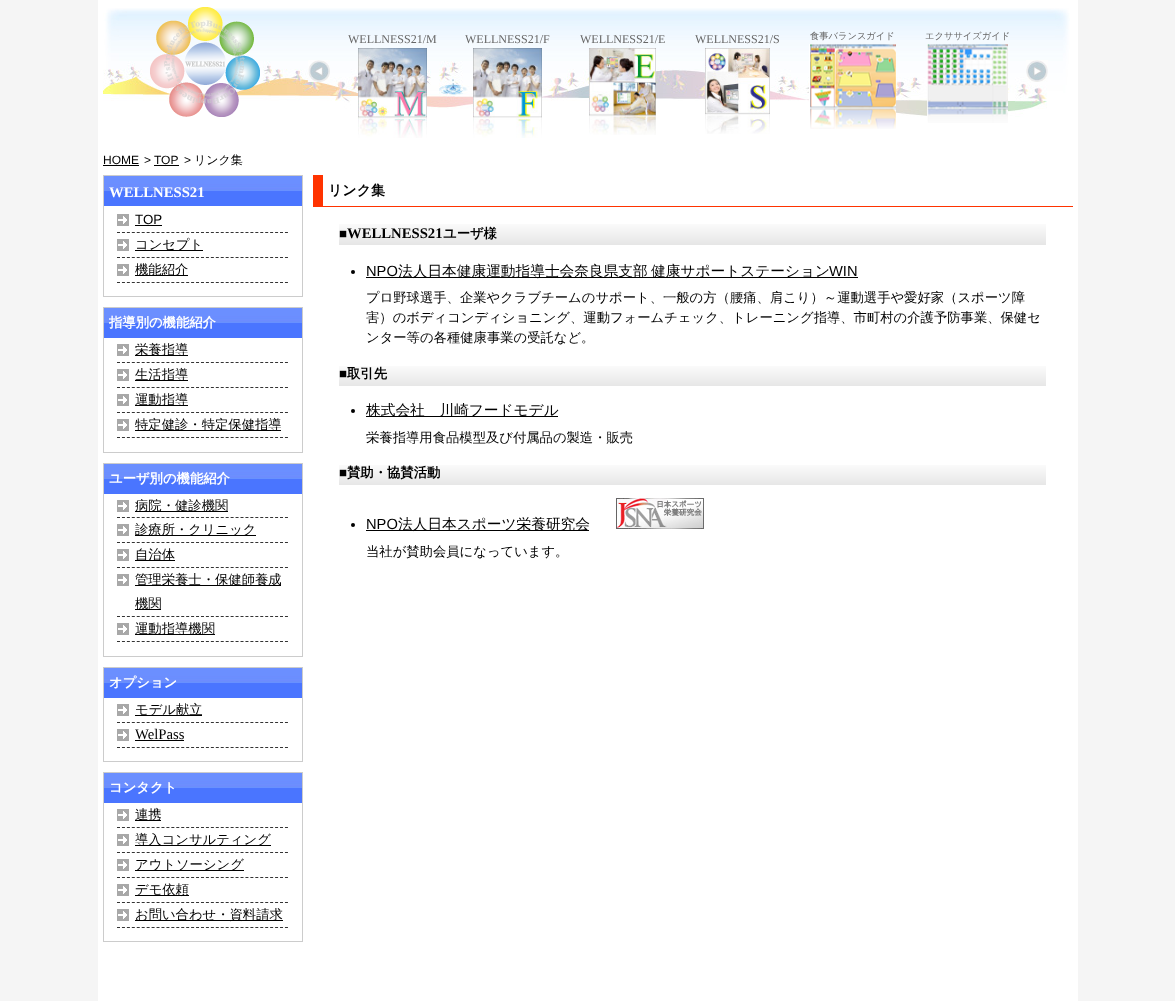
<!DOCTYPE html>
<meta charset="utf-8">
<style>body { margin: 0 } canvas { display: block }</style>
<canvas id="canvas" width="1175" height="1001"></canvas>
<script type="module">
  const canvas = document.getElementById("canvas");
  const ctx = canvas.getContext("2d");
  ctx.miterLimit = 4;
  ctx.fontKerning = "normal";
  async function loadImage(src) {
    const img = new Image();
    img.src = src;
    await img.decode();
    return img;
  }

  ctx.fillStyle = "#f5f5f5";
  ctx.fillRect(0, 0, 1175, 1001);
  ctx.fillStyle = "#ffffff";
  ctx.fillRect(98, 0, 980, 1001);
  ctx.drawImage(await loadImage("img1.png"), 103, 8, 967, 109);
  ctx.drawImage(await loadImage("img2.png"), 150, 7, 110, 110);
  ctx.font = "12px Liberation Serif";
  ctx.fillStyle = "#666666";
  ctx.fillText("WELLNESS21/M", 348, 43);
  ctx.drawImage(await loadImage("img3.png"), 358, 48, 69, 90);
  ctx.fillText("WELLNESS21/F", 465, 43);
  ctx.drawImage(await loadImage("img4.png"), 473, 48, 69, 90);
  ctx.fillText("WELLNESS21/E", 580, 43);
  ctx.drawImage(await loadImage("img5.png"), 589, 48, 67, 87);
  ctx.fillText("WELLNESS21/S", 695, 43);
  ctx.drawImage(await loadImage("img6.png"), 705, 48, 65, 86);
  ctx.font = "500 9.25px WenQuanYi Zen Hei";
  ctx.fillText("食事バランスガイド", 810, 39);
  ctx.drawImage(await loadImage("img7.png"), 809, 44, 87, 85);
  ctx.fillText("エクササイズガイド", 925, 39);
  ctx.drawImage(await loadImage("img8.png"), 927, 44, 81, 79);
  ctx.drawImage(await loadImage("img9.png"), 308, 60, 22, 22);
  ctx.drawImage(await loadImage("img10.png"), 1026, 60, 22, 22);
  ctx.font = "12px Liberation Sans";
  ctx.fillStyle = "#000000";
  ctx.fillText("HOME", 103, 164);
  ctx.fillRect(103, 165, 36, 1);
  ctx.fillText(">", 144, 164);
  ctx.fillText("TOP", 154, 164);
  ctx.fillRect(154, 165, 25, 1);
  ctx.fillText(">", 184, 164);
  ctx.font = "500 12px WenQuanYi Zen Hei";
  ctx.fillText("リンク集", 194, 164);
  ctx.strokeStyle = "#cccccc";
  ctx.strokeRect(103.5, 175.5, 199, 121);
  ctx.drawImage(await loadImage("img11.png"), 104, 176, 198, 30);
  ctx.font = "bold 14.7px Liberation Serif";
  ctx.fillStyle = "#ffffff";
  ctx.fillText("WELLNESS21", 109, 197);
  ctx.drawImage(await loadImage("img12.png"), 117, 214, 12, 12);
  ctx.beginPath();
  ctx.moveTo(117, 232.5);
  ctx.lineTo(288, 232.5);
  ctx.strokeStyle = "#333333";
  ctx.setLineDash([3, 1.94]);
  ctx.stroke();
  ctx.font = "13.33px Liberation Sans";
  ctx.fillStyle = "#000000";
  ctx.fillText("TOP", 135, 224);
  ctx.fillRect(135, 225, 27, 1);
  ctx.drawImage(await loadImage("img12.png"), 117, 239, 12, 12);
  ctx.beginPath();
  ctx.moveTo(117, 257.5);
  ctx.lineTo(288, 257.5);
  ctx.stroke();
  ctx.fillRect(135, 250, 68, 1);
  ctx.font = "500 13.33px WenQuanYi Zen Hei";
  ctx.fillText("コンセプト", 135, 249);
  ctx.drawImage(await loadImage("img12.png"), 117, 264, 12, 12);
  ctx.beginPath();
  ctx.moveTo(117, 282.5);
  ctx.lineTo(288, 282.5);
  ctx.stroke();
  ctx.fillRect(135, 275, 53, 1);
  ctx.fillText("機能紹介", 135, 274);
  ctx.strokeStyle = "#cccccc";
  ctx.setLineDash([]);
  ctx.strokeRect(103.5, 307.5, 199, 145);
  ctx.drawImage(await loadImage("img11.png"), 104, 308, 198, 30);
  ctx.font = "bold 13.33px WenQuanYi Zen Hei";
  ctx.fillStyle = "#ffffff";
  ctx.fillText("指導別の機能紹介", 109, 327);
  ctx.drawImage(await loadImage("img12.png"), 117, 344, 12, 12);
  ctx.beginPath();
  ctx.moveTo(117, 362.5);
  ctx.lineTo(288, 362.5);
  ctx.strokeStyle = "#333333";
  ctx.setLineDash([3, 1.94]);
  ctx.stroke();
  ctx.fillStyle = "#000000";
  ctx.fillRect(135, 355, 53, 1);
  ctx.font = "500 13.33px WenQuanYi Zen Hei";
  ctx.fillText("栄養指導", 135, 354);
  ctx.drawImage(await loadImage("img12.png"), 117, 369, 12, 12);
  ctx.beginPath();
  ctx.moveTo(117, 387.5);
  ctx.lineTo(288, 387.5);
  ctx.stroke();
  ctx.fillRect(135, 380, 53, 1);
  ctx.fillText("生活指導", 135, 379);
  ctx.drawImage(await loadImage("img12.png"), 117, 394, 12, 12);
  ctx.beginPath();
  ctx.moveTo(117, 412.5);
  ctx.lineTo(288, 412.5);
  ctx.stroke();
  ctx.fillRect(135, 405, 53, 1);
  ctx.fillText("運動指導", 135, 404);
  ctx.drawImage(await loadImage("img12.png"), 117, 419, 12, 12);
  ctx.beginPath();
  ctx.moveTo(117, 437.5);
  ctx.lineTo(288, 437.5);
  ctx.stroke();
  ctx.fillRect(135, 430, 146, 1);
  ctx.fillText("特定健診・特定保健指導", 135, 429);
  ctx.strokeStyle = "#cccccc";
  ctx.setLineDash([]);
  ctx.strokeRect(103.5, 463.5, 199, 193);
  ctx.drawImage(await loadImage("img11.png"), 104, 464, 198, 30);
  ctx.font = "bold 13.33px WenQuanYi Zen Hei";
  ctx.fillStyle = "#ffffff";
  ctx.fillText("ユーザ別の機能紹介", 109, 483);
  ctx.drawImage(await loadImage("img12.png"), 117, 500, 12, 12);
  ctx.beginPath();
  ctx.moveTo(117, 517.5);
  ctx.lineTo(288, 517.5);
  ctx.strokeStyle = "#333333";
  ctx.setLineDash([3, 1.94]);
  ctx.stroke();
  ctx.fillStyle = "#000000";
  ctx.fillRect(135, 511, 93, 1);
  ctx.font = "500 13.33px WenQuanYi Zen Hei";
  ctx.fillText("病院・健診機関", 135, 510);
  ctx.drawImage(await loadImage("img12.png"), 117, 524, 12, 12);
  ctx.beginPath();
  ctx.moveTo(117, 542.5);
  ctx.lineTo(288, 542.5);
  ctx.stroke();
  ctx.fillRect(135, 535, 121, 1);
  ctx.fillText("診療所・クリニック", 135, 534);
  ctx.drawImage(await loadImage("img12.png"), 117, 549, 12, 12);
  ctx.beginPath();
  ctx.moveTo(117, 567.5);
  ctx.lineTo(288, 567.5);
  ctx.stroke();
  ctx.fillRect(135, 560, 40, 1);
  ctx.fillText("自治体", 135, 559);
  ctx.drawImage(await loadImage("img12.png"), 117, 574, 12, 12);
  ctx.beginPath();
  ctx.moveTo(117, 616.5);
  ctx.lineTo(288, 616.5);
  ctx.stroke();
  ctx.fillRect(135, 585, 146, 1);
  ctx.fillText("管理栄養士・保健師養成", 135, 584);
  ctx.fillRect(135, 609, 26, 1);
  ctx.fillText("機関", 135, 608);
  ctx.drawImage(await loadImage("img12.png"), 117, 623, 12, 12);
  ctx.beginPath();
  ctx.moveTo(117, 641.5);
  ctx.lineTo(288, 641.5);
  ctx.stroke();
  ctx.fillRect(135, 634, 80, 1);
  ctx.fillText("運動指導機関", 135, 633);
  ctx.strokeStyle = "#cccccc";
  ctx.setLineDash([]);
  ctx.strokeRect(103.5, 667.5, 199, 94);
  ctx.drawImage(await loadImage("img11.png"), 104, 668, 198, 30);
  ctx.font = "bold 13.33px WenQuanYi Zen Hei";
  ctx.fillStyle = "#ffffff";
  ctx.fillText("オプション", 109, 687);
  ctx.drawImage(await loadImage("img12.png"), 117, 704, 12, 12);
  ctx.beginPath();
  ctx.moveTo(117, 722.5);
  ctx.lineTo(288, 722.5);
  ctx.strokeStyle = "#333333";
  ctx.setLineDash([3, 1.94]);
  ctx.stroke();
  ctx.fillStyle = "#000000";
  ctx.fillRect(135, 715, 67, 1);
  ctx.font = "500 13.33px WenQuanYi Zen Hei";
  ctx.fillText("モデル献立", 135, 714);
  ctx.drawImage(await loadImage("img12.png"), 117, 729, 12, 12);
  ctx.beginPath();
  ctx.moveTo(117, 747.5);
  ctx.lineTo(288, 747.5);
  ctx.stroke();
  ctx.font = "14.7px Liberation Serif";
  ctx.fillText("WelPass", 135, 739);
  ctx.fillRect(135, 740, 49, 1);
  ctx.strokeStyle = "#cccccc";
  ctx.setLineDash([]);
  ctx.strokeRect(103.5, 772.5, 199, 169);
  ctx.drawImage(await loadImage("img11.png"), 104, 773, 198, 30);
  ctx.font = "bold 13.33px WenQuanYi Zen Hei";
  ctx.fillStyle = "#ffffff";
  ctx.fillText("コンタクト", 109, 792);
  ctx.drawImage(await loadImage("img12.png"), 117, 809, 12, 12);
  ctx.beginPath();
  ctx.moveTo(117, 827.5);
  ctx.lineTo(288, 827.5);
  ctx.strokeStyle = "#333333";
  ctx.setLineDash([3, 1.94]);
  ctx.stroke();
  ctx.fillStyle = "#000000";
  ctx.fillRect(135, 820, 26, 1);
  ctx.font = "500 13.33px WenQuanYi Zen Hei";
  ctx.fillText("連携", 135, 819);
  ctx.drawImage(await loadImage("img12.png"), 117, 834, 12, 12);
  ctx.beginPath();
  ctx.moveTo(117, 852.5);
  ctx.lineTo(288, 852.5);
  ctx.stroke();
  ctx.fillRect(135, 845, 136, 1);
  ctx.fillText("導入コンサルティング", 135, 844);
  ctx.drawImage(await loadImage("img12.png"), 117, 859, 12, 12);
  ctx.beginPath();
  ctx.moveTo(117, 877.5);
  ctx.lineTo(288, 877.5);
  ctx.stroke();
  ctx.fillRect(135, 870, 109, 1);
  ctx.fillText("アウトソーシング", 135, 869);
  ctx.drawImage(await loadImage("img12.png"), 117, 884, 12, 12);
  ctx.beginPath();
  ctx.moveTo(117, 902.5);
  ctx.lineTo(288, 902.5);
  ctx.stroke();
  ctx.fillRect(135, 895, 54, 1);
  ctx.fillText("デモ依頼", 135, 894);
  ctx.drawImage(await loadImage("img12.png"), 117, 909, 12, 12);
  ctx.beginPath();
  ctx.moveTo(117, 927.5);
  ctx.lineTo(288, 927.5);
  ctx.stroke();
  ctx.fillRect(135, 920, 148, 1);
  ctx.fillText("お問い合わせ・資料請求", 135, 919);
  ctx.fillStyle = "#ff3300";
  ctx.fillRect(323, 206, 750, 1);
  ctx.fillRect(313, 175, 10, 32);
  ctx.font = "bold 14px WenQuanYi Zen Hei";
  ctx.fillStyle = "#000000";
  ctx.fillText("リンク集", 328, 195);
  ctx.drawImage(await loadImage("img13.png"), 339, 224, 707, 21);
  ctx.font = "bold 13.33px Liberation Sans";
  ctx.fillText("■", 339, 238);
  ctx.font = "bold 14.7px Liberation Serif";
  ctx.fillText("WELLNESS21", 347, 238);
  ctx.font = "bold 13.33px WenQuanYi Zen Hei";
  ctx.fillText("ユーザ様", 443, 238);
  ctx.beginPath();
  ctx.arc(353, 272, 2, 0, Math.PI * 2);
  ctx.fill();
  ctx.font = "14.7px Liberation Sans";
  ctx.fillText("NPO", 366, 276);
  ctx.fillRect(366, 277, 492, 1);
  ctx.wordSpacing = "-1px";
  ctx.font = "500 14.7px WenQuanYi Zen Hei";
  ctx.fillText("法人日本健康運動指導士会奈良県支部 健康サポートステーション", 398, 276);
  ctx.wordSpacing = "0px";
  ctx.font = "14.7px Liberation Sans";
  ctx.fillText("WIN", 829, 276);
  ctx.font = "500 13.33px WenQuanYi Zen Hei";
  ctx.fillText("プロ野球選手、企業やクラブチームのサポート、一般の方（腰痛、肩こり）～運動選手や愛好家（スポーツ障", 366, 302);
  ctx.fillText("害）のボディコンディショニング、運動フォームチェック、トレーニング指導、市町村の介護予防事業、保健セ", 366, 322);
  ctx.fillText("ンター等の各種健康事業の受託など。", 366, 342);
  ctx.drawImage(await loadImage("img14.png"), 339, 366, 707, 20);
  ctx.font = "bold 13.33px Liberation Sans";
  ctx.fillText("■", 339, 378);
  ctx.font = "bold 13.33px WenQuanYi Zen Hei";
  ctx.fillText("取引先", 347, 378);
  ctx.beginPath();
  ctx.arc(353, 411, 2, 0, Math.PI * 2);
  ctx.fill();
  ctx.fillRect(366, 416, 192, 1);
  ctx.font = "500 14.7px WenQuanYi Zen Hei";
  ctx.fillText("株式会社　川崎フードモデル", 366, 415);
  ctx.font = "500 13.33px WenQuanYi Zen Hei";
  ctx.fillText("栄養指導用食品模型及び付属品の製造・販売", 366, 442);
  ctx.drawImage(await loadImage("img14.png"), 339, 465, 707, 20);
  ctx.font = "bold 13.33px Liberation Sans";
  ctx.fillText("■", 339, 477);
  ctx.font = "bold 13.33px WenQuanYi Zen Hei";
  ctx.fillText("賛助・協賛活動", 347, 477);
  ctx.beginPath();
  ctx.arc(353, 525, 2, 0, Math.PI * 2);
  ctx.fill();
  ctx.font = "14.7px Liberation Sans";
  ctx.fillText("NPO", 366, 529);
  ctx.fillRect(366, 530, 223, 1);
  ctx.font = "500 14.7px WenQuanYi Zen Hei";
  ctx.fillText("法人日本スポーツ栄養研究会", 398, 529);
  ctx.drawImage(await loadImage("img15.png"), 616, 498, 88, 31);
  ctx.font = "500 13.33px WenQuanYi Zen Hei";
  ctx.fillText("当社が賛助会員になっています。", 366, 556);
</script>
